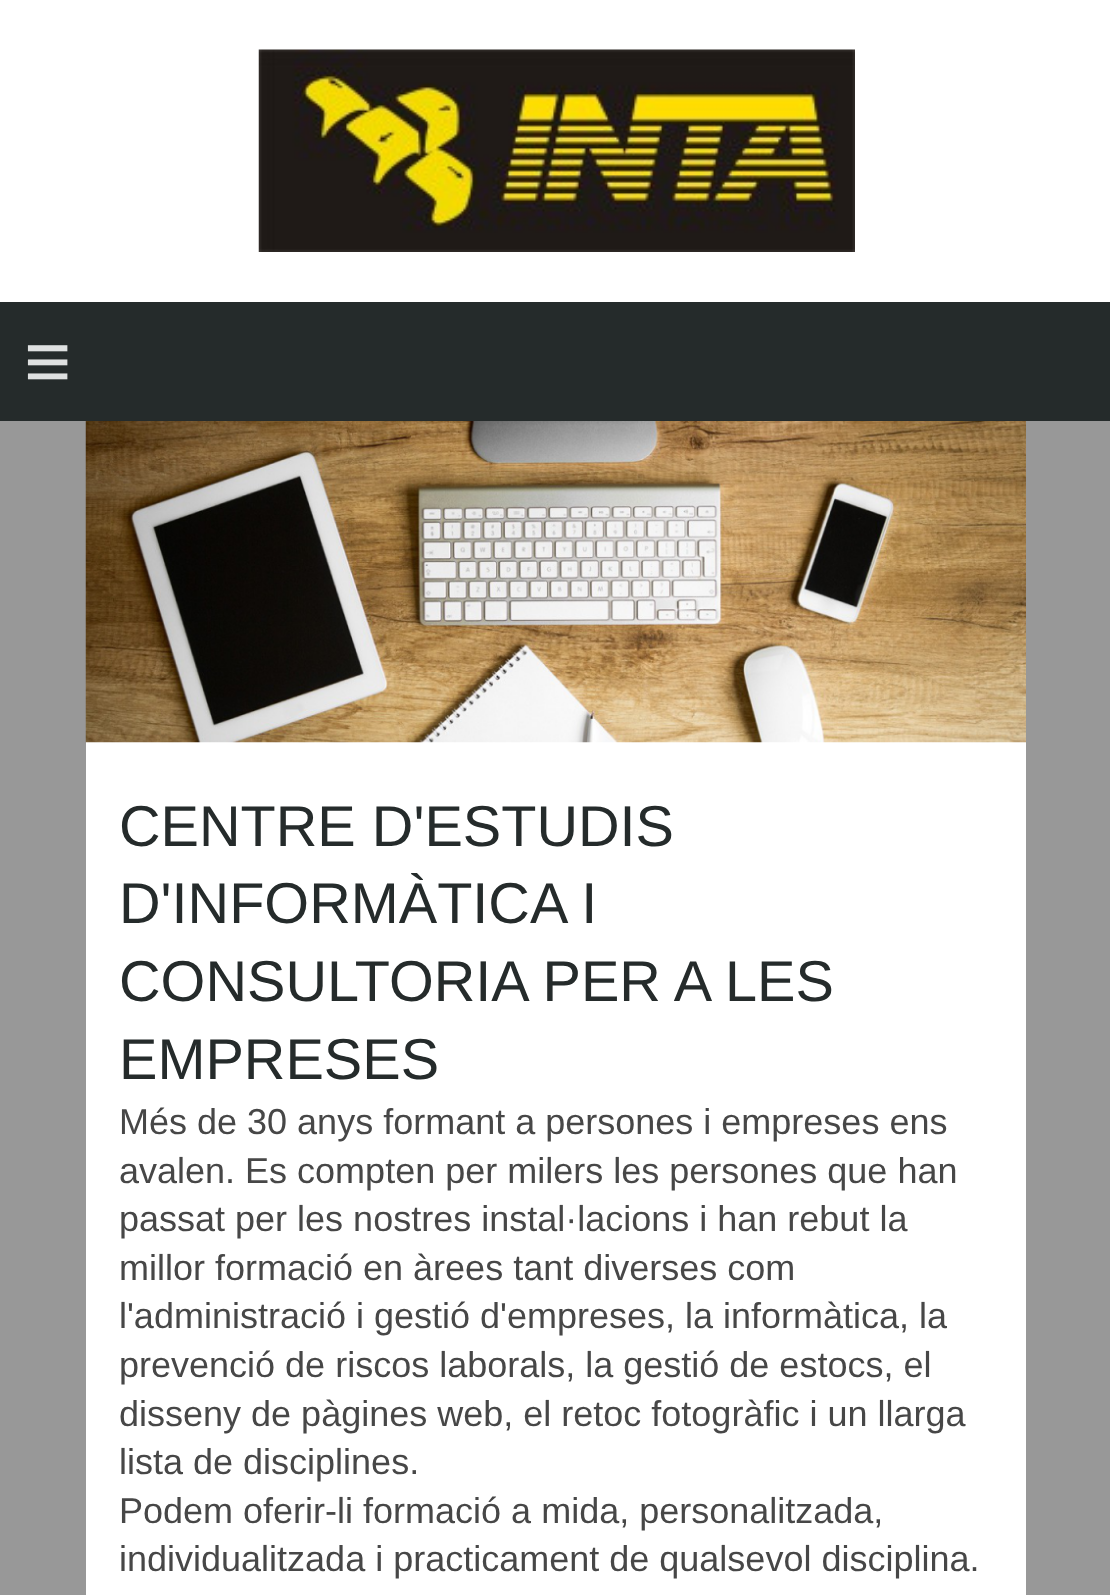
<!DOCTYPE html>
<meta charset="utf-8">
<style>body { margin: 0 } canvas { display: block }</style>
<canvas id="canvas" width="1110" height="1595"></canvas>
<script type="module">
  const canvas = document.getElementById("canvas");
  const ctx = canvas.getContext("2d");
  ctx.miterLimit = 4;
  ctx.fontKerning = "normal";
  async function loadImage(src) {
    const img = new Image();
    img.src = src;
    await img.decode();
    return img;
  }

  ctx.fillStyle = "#989898";
  ctx.fillRect(0, 0, 1110, 1595);
  ctx.fillStyle = "#ffffff";
  ctx.fillRect(0, 0, 1110, 302);
  ctx.drawImage(await loadImage("img1.png"), 258, 49, 597, 203);
  ctx.fillStyle = "#252b2b";
  ctx.fillRect(0, 302, 1110, 119);
  ctx.letterSpacing = "24px";
  ctx.font = "81px Liberation Sans";
  ctx.fillStyle = "#dfe1e1";
  ctx.fillText("≡", 24, 389);
  ctx.fillStyle = "#ffffff";
  ctx.fillRect(86, 742, 940, 853);
  ctx.drawImage(await loadImage("img2.png"), 85, 421, 941, 322);
  ctx.letterSpacing = "0px";
  ctx.font = "57.6px Liberation Sans";
  ctx.fillStyle = "#252b2b";
  ctx.fillText("CENTRE D'ESTUDIS", 119, 846);
  ctx.fillText("D'INFORMÀTICA I", 119, 923);
  ctx.fillText("CONSULTORIA PER A LES", 119, 1001);
  ctx.fillText("EMPRESES", 119, 1079);
  ctx.font = "36px Liberation Sans";
  ctx.fillStyle = "#474747";
  ctx.fillText("Més de 30 anys formant a persones i empreses ens", 119, 1134);
  ctx.fillText("avalen. Es compten per milers les persones que han", 119, 1183);
  ctx.fillText("passat per les nostres instal·lacions i han rebut la", 119, 1231);
  ctx.fillText("millor formació en àrees tant diverses com", 119, 1280);
  ctx.fillText("l'administració i gestió d'empreses, la informàtica, la", 119, 1328);
  ctx.fillText("prevenció de riscos laborals, la gestió de estocs, el", 119, 1377);
  ctx.fillText("disseny de pàgines web, el retoc fotogràfic i un llarga", 119, 1426);
  ctx.fillText("lista de disciplines.", 119, 1474);
  ctx.fillText("Podem oferir-li formació a mida, personalitzada,", 119, 1523);
  ctx.fillText("individualitzada i practicament de qualsevol disciplina.", 119, 1571);
</script>
